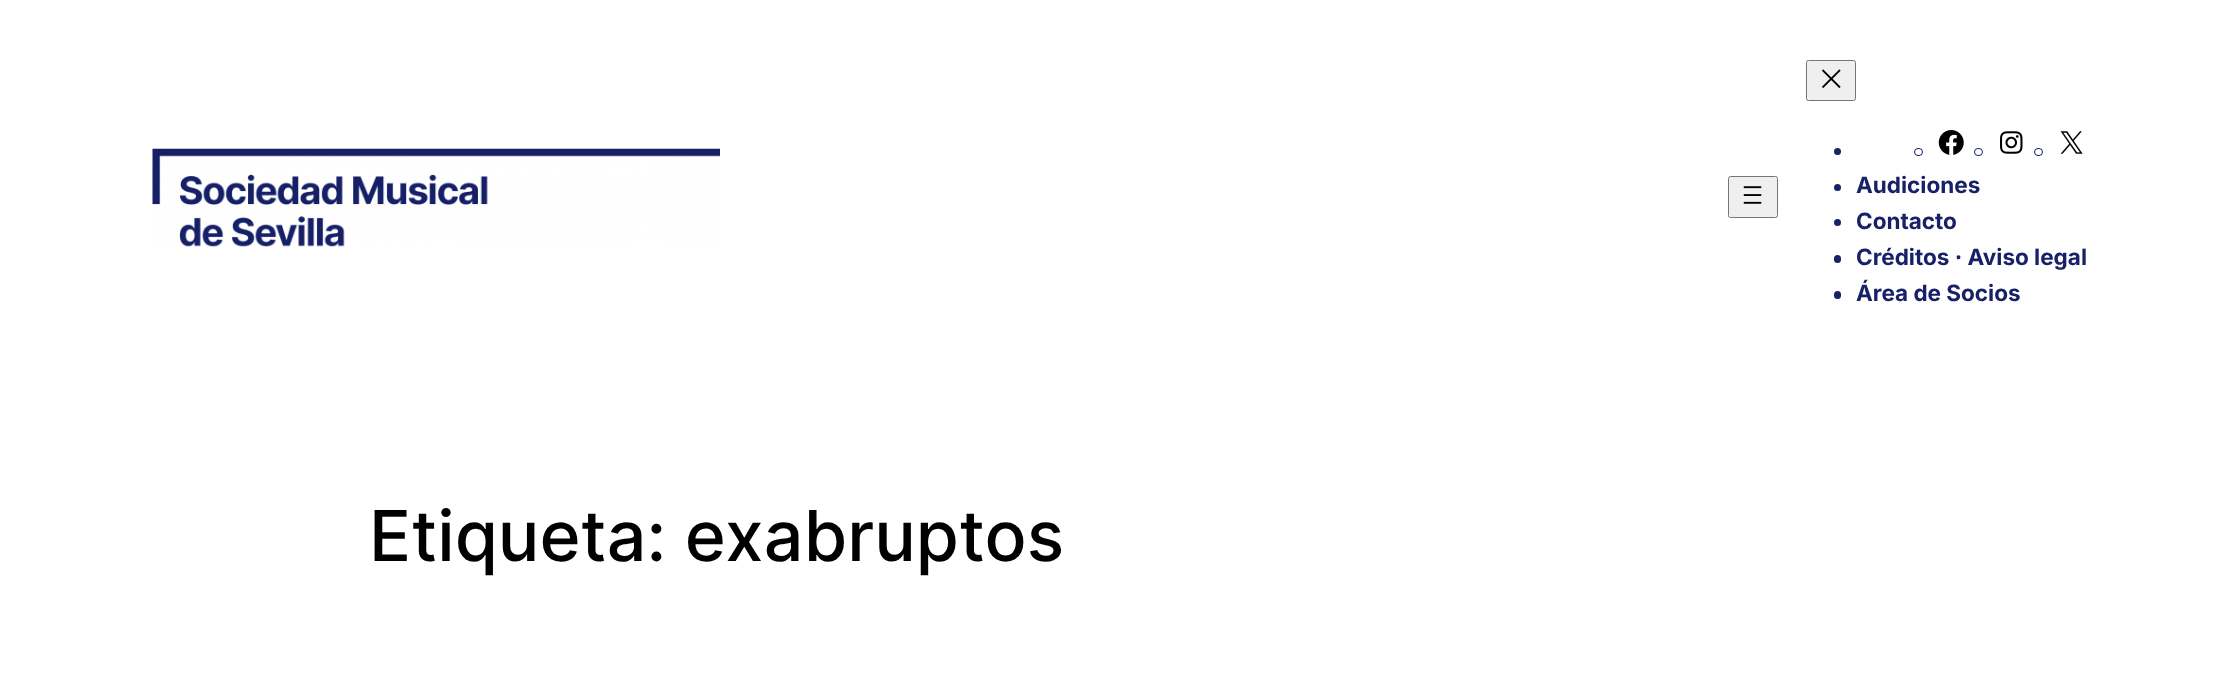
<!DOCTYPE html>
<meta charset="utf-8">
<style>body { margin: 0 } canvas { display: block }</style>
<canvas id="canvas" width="2238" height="682"></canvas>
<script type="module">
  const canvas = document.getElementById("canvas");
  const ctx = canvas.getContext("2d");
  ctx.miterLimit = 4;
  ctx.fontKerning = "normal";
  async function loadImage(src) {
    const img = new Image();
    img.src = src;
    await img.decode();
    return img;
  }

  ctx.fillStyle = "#ffffff";
  ctx.fillRect(0, 0, 2238, 682);
  ctx.drawImage(await loadImage("img1.png"), 152, 148, 568, 99);
  ctx.fillStyle = "#efefef";
  ctx.beginPath();
  ctx.roundRect(1728.5, 176.5, 49, 41, 2);
  ctx.fill();
  ctx.strokeStyle = "#767676";
  ctx.stroke();
  ctx.drawImage(await loadImage("img2.png"), 1743, 186, 19, 18);
  ctx.beginPath();
  ctx.roundRect(1806.5, 60.5, 49, 40, 2);
  ctx.fill();
  ctx.stroke();
  ctx.drawImage(await loadImage("img3.png"), 1821, 69, 20, 20);
  ctx.fillStyle = "#182068";
  ctx.beginPath();
  ctx.arc(1837.5, 151.5, 3.5, 0, Math.PI * 2);
  ctx.fill();
  ctx.beginPath();
  ctx.roundRect(1914.5, 148.5, 8, 7, 3.5);
  ctx.strokeStyle = "#162068";
  ctx.stroke();
  ctx.drawImage(await loadImage("img4.png"), 1938, 130, 26, 25);
  ctx.beginPath();
  ctx.roundRect(1974.5, 148.5, 8, 7, 3.5);
  ctx.stroke();
  ctx.drawImage(await loadImage("img5.png"), 2000, 131, 23, 23);
  ctx.beginPath();
  ctx.roundRect(2034.5, 148.5, 8, 7, 3.5);
  ctx.stroke();
  ctx.drawImage(await loadImage("img6.png"), 2060, 131, 23, 23);
  ctx.beginPath();
  ctx.arc(1837.5, 187.5, 3.5, 0, Math.PI * 2);
  ctx.fill();
  ctx.font = "bold 22.5px Inter";
  ctx.fillText("Audiciones", 1856, 193);
  ctx.beginPath();
  ctx.arc(1837.5, 222.5, 3.5, 0, Math.PI * 2);
  ctx.fill();
  ctx.fillText("Contacto", 1856, 229);
  ctx.beginPath();
  ctx.roundRect(1834, 255, 7, 8, 3.5);
  ctx.fill();
  ctx.fillText("Créditos · Aviso legal", 1856, 265);
  ctx.beginPath();
  ctx.roundRect(1834, 291, 7, 8, 3.5);
  ctx.fill();
  ctx.fillText("Área de Socios", 1856, 301);
  ctx.font = "500 70px Inter";
  ctx.fillStyle = "#000000";
  ctx.fillText("Etiqueta: exabruptos", 369, 561);
</script>
